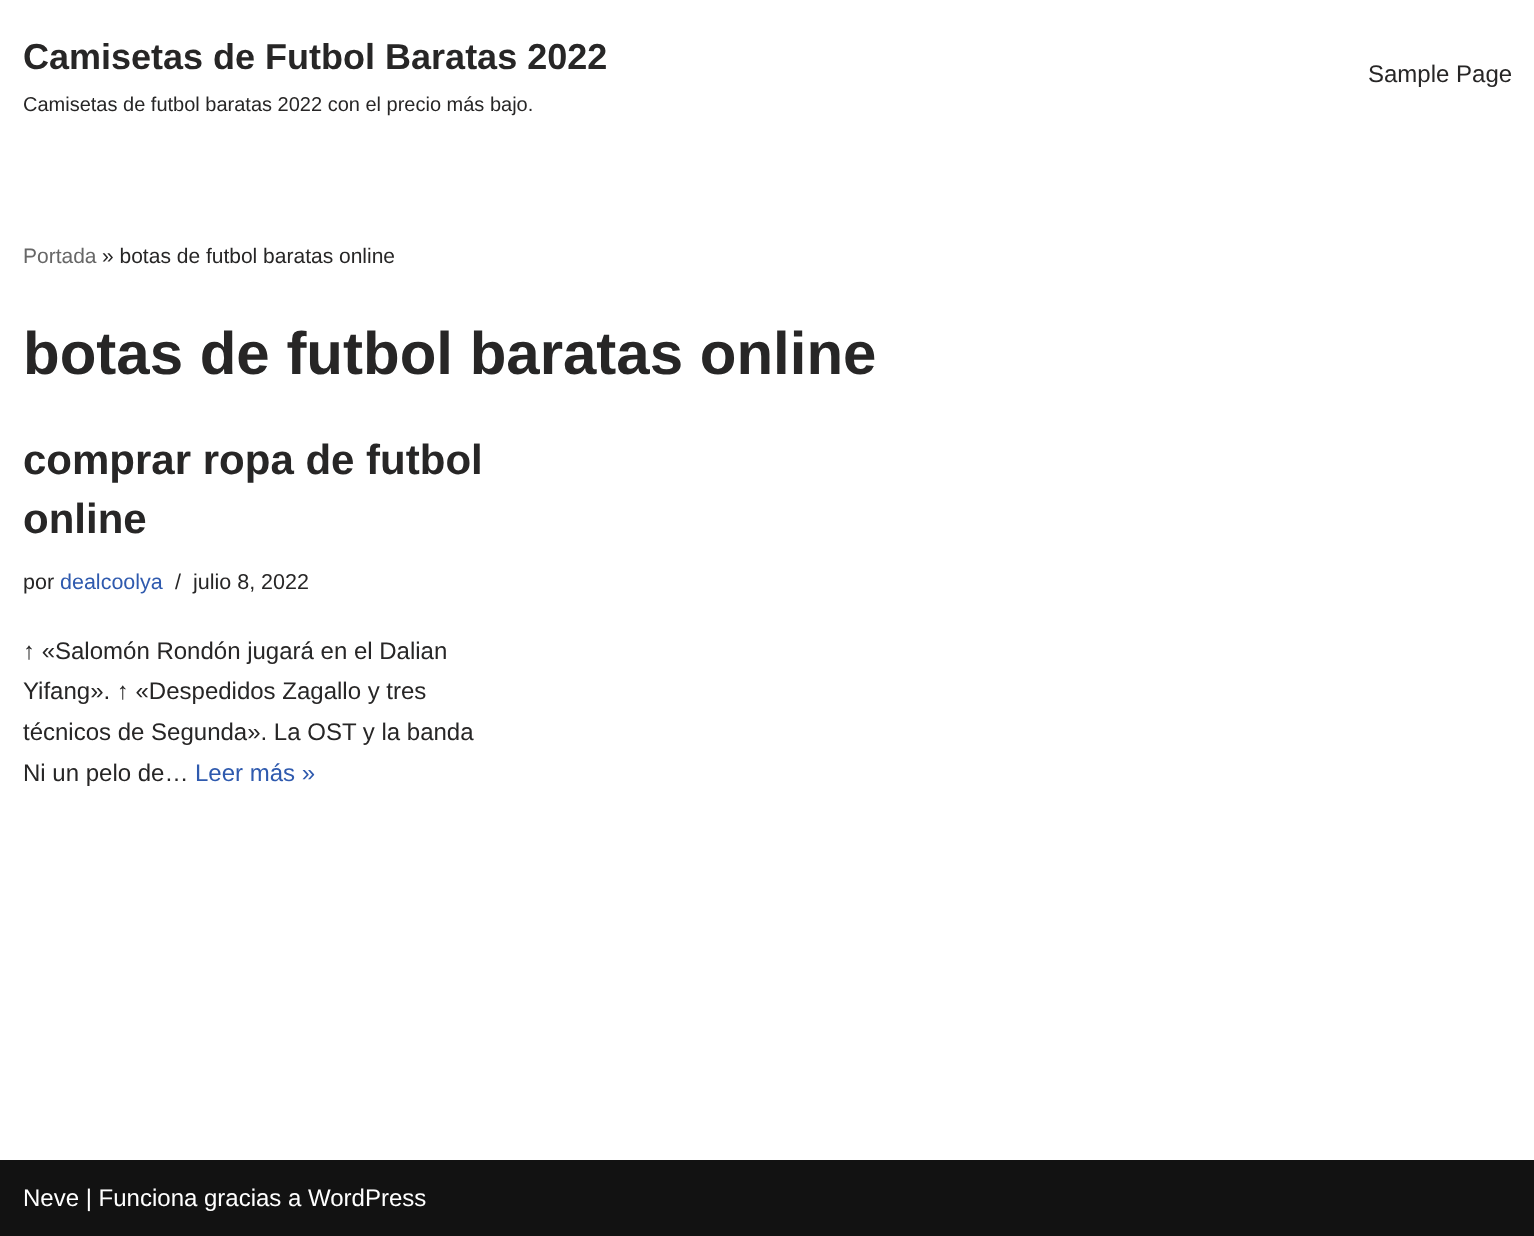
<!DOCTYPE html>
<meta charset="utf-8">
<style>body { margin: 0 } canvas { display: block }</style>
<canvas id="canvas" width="1534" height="1236"></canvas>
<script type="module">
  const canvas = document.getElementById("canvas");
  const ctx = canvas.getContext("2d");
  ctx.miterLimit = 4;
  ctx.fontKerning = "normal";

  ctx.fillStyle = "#ffffff";
  ctx.fillRect(0, 0, 1534, 1236);
  ctx.font = "bold 36px Liberation Sans";
  ctx.fillStyle = "#272626";
  ctx.fillText("Camisetas de Futbol Baratas 2022", 23, 69);
  ctx.font = "20px Liberation Sans";
  ctx.fillText("Camisetas de futbol baratas 2022 con el precio más bajo.", 23, 111);
  ctx.font = "24px Liberation Sans";
  ctx.fillText("Sample Page", 1368, 82);
  ctx.font = "21px Liberation Sans";
  ctx.fillStyle = "#676767";
  ctx.fillText("Portada", 23, 263);
  ctx.fillStyle = "#272626";
  ctx.fillText("» botas de futbol baratas online", 102, 263);
  ctx.font = "bold 60px Liberation Sans";
  ctx.fillText("botas de futbol baratas online", 23, 374);
  ctx.font = "bold 42px Liberation Sans";
  ctx.fillText("comprar ropa de futbol", 23, 474);
  ctx.fillText("online", 23, 533);
  ctx.font = "21.5px Liberation Sans";
  ctx.fillText("por", 23, 589);
  ctx.fillStyle = "#2f5aae";
  ctx.fillText("dealcoolya", 60, 589);
  ctx.fillStyle = "#272626";
  ctx.fillText("/", 175, 589);
  ctx.fillText("julio 8, 2022", 193, 589);
  ctx.font = "24px Liberation Sans";
  ctx.fillText("↑ «Salomón Rondón jugará en el Dalian", 23, 659);
  ctx.fillText("Yifang». ↑ «Despedidos Zagallo y tres", 23, 699);
  ctx.fillText("técnicos de Segunda». La OST y la banda", 23, 740);
  ctx.fillText("Ni un pelo de…", 23, 781);
  ctx.fillStyle = "#2f5aae";
  ctx.fillText("Leer más »", 195, 781);
  ctx.fillStyle = "#121212";
  ctx.fillRect(0, 1160, 1534, 76);
  ctx.fillStyle = "#ffffff";
  ctx.fillText("Neve | Funciona gracias a WordPress", 23, 1206);
</script>
